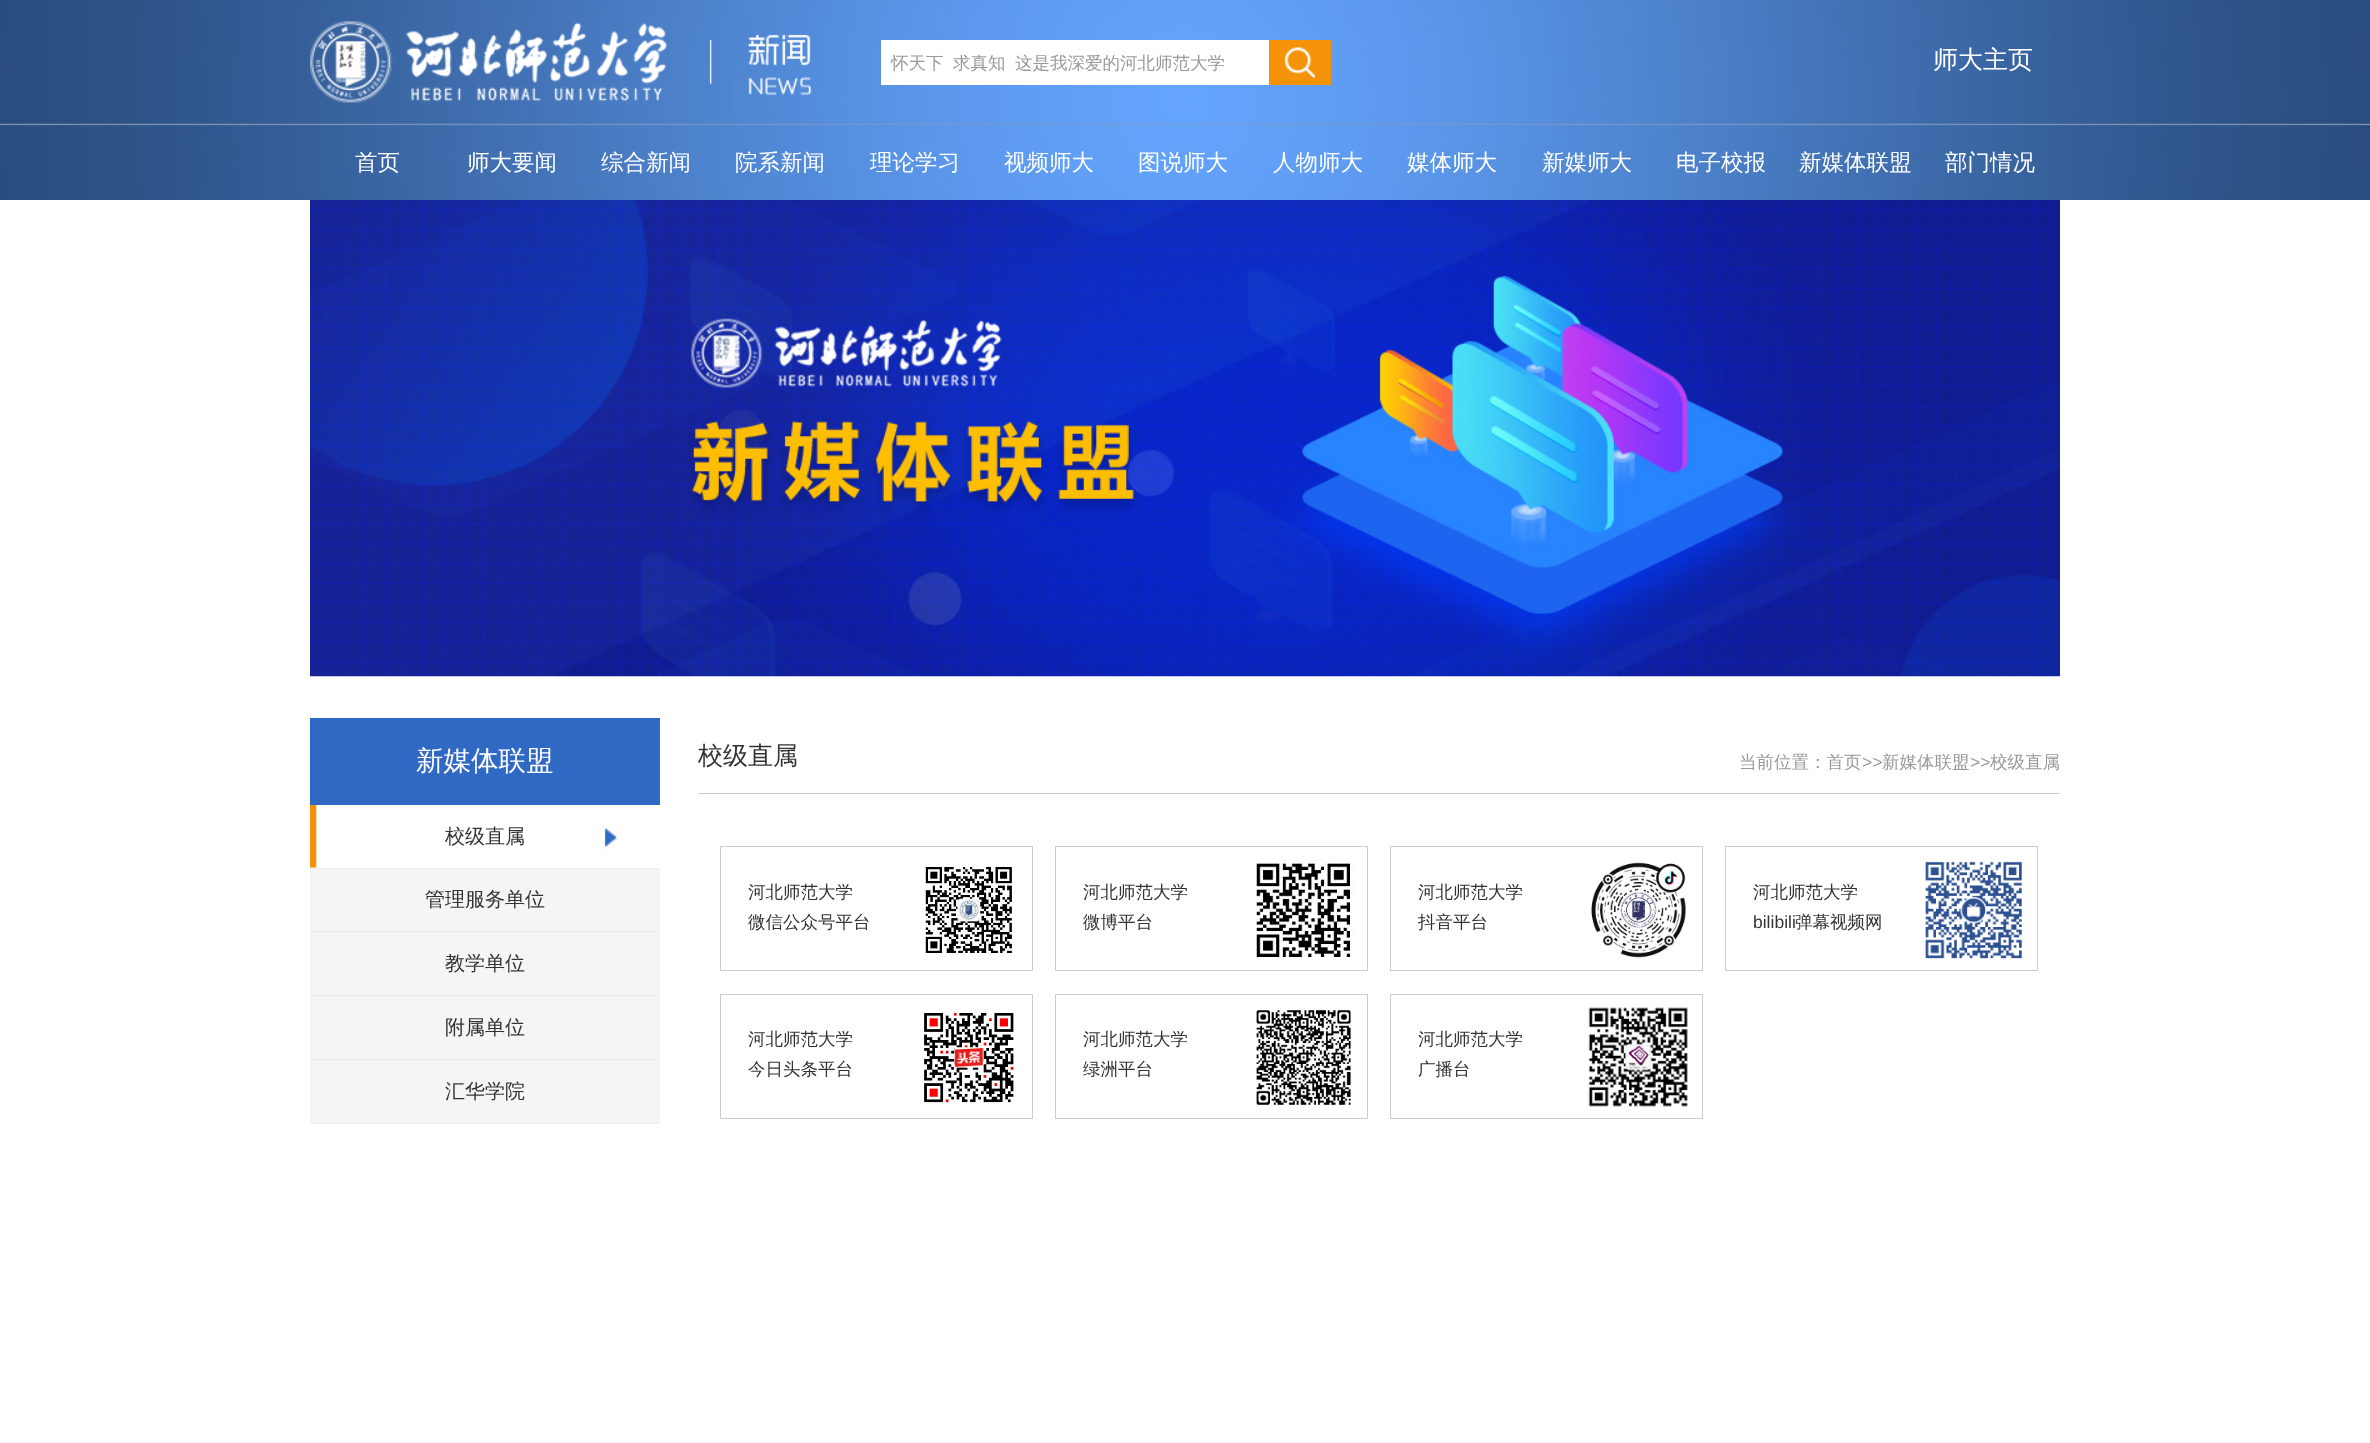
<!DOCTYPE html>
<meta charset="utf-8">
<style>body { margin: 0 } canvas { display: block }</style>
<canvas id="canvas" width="2370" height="1443"></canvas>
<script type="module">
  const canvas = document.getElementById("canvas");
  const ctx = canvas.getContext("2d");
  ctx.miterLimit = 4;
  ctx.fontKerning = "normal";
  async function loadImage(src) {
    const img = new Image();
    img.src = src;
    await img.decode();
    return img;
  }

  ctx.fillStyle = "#ffffff";
  ctx.fillRect(0, 0, 2370, 1443);
  ctx.drawImage(await loadImage("img1.png"), 0, 0, 2370, 200);
  ctx.drawImage(await loadImage("img2.png"), 310, 21, 502, 82);
  ctx.fillRect(881, 40, 388, 45);
  ctx.wordSpacing = "-0.5px";
  ctx.font = "500 17.5px WenQuanYi Zen Hei";
  ctx.fillStyle = "#999999";
  ctx.fillText("怀天下  求真知  这是我深爱的河北师范大学", 891, 69);
  ctx.fillStyle = "#f4930a";
  ctx.fillRect(1269, 40, 62, 45);
  ctx.drawImage(await loadImage("img3.png"), 1285, 47, 30, 31);
  ctx.wordSpacing = "0px";
  ctx.font = "500 25px WenQuanYi Zen Hei";
  ctx.fillStyle = "#ffffff";
  ctx.fillText("师大主页", 1933, 68);
  ctx.font = "500 22.5px WenQuanYi Zen Hei";
  ctx.fillText("首页", 355, 170);
  ctx.fillText("师大要闻", 467, 170);
  ctx.fillText("综合新闻", 601, 170);
  ctx.fillText("院系新闻", 735, 170);
  ctx.fillText("理论学习", 870, 170);
  ctx.fillText("视频师大", 1004, 170);
  ctx.fillText("图说师大", 1138, 170);
  ctx.fillText("人物师大", 1273, 170);
  ctx.fillText("媒体师大", 1407, 170);
  ctx.fillText("新媒师大", 1542, 170);
  ctx.fillText("电子校报", 1676, 170);
  ctx.fillText("新媒体联盟", 1799, 170);
  ctx.fillText("部门情况", 1945, 170);
  ctx.drawImage(await loadImage("img4.png"), 310, 200, 1750, 477);
  ctx.fillStyle = "#2f69c4";
  ctx.fillRect(310, 718, 350, 87);
  ctx.font = "500 27.5px WenQuanYi Zen Hei";
  ctx.fillStyle = "#ffffff";
  ctx.fillText("新媒体联盟", 416, 770);
  ctx.drawImage(await loadImage("img5.png"), 310, 805, 307, 63);
  ctx.fillStyle = "#eaeaea";
  ctx.fillRect(310, 868, 350, 1);
  ctx.font = "500 20px WenQuanYi Zen Hei";
  ctx.fillStyle = "#333333";
  ctx.fillText("校级直属", 445, 843);
  ctx.fillStyle = "#f5f5f5";
  ctx.fillRect(310, 869, 350, 126);
  ctx.fillStyle = "#eaeaea";
  ctx.fillRect(310, 931, 350, 1);
  ctx.fillStyle = "#333333";
  ctx.fillText("管理服务单位", 425, 906);
  ctx.fillStyle = "#eaeaea";
  ctx.fillRect(310, 995, 350, 1);
  ctx.fillStyle = "#333333";
  ctx.fillText("教学单位", 445, 970);
  ctx.fillStyle = "#f5f5f5";
  ctx.fillRect(310, 996, 350, 63);
  ctx.fillStyle = "#eaeaea";
  ctx.fillRect(310, 1059, 350, 1);
  ctx.fillStyle = "#333333";
  ctx.fillText("附属单位", 445, 1034);
  ctx.fillStyle = "#f5f5f5";
  ctx.fillRect(310, 1060, 350, 63);
  ctx.fillStyle = "#eaeaea";
  ctx.fillRect(310, 1123, 350, 1);
  ctx.fillStyle = "#333333";
  ctx.fillText("汇华学院", 445, 1098);
  ctx.fillStyle = "#cccccc";
  ctx.fillRect(698, 793, 1362, 1);
  ctx.font = "500 25px WenQuanYi Zen Hei";
  ctx.fillStyle = "#333333";
  ctx.fillText("校级直属", 698, 764);
  ctx.font = "500 17.5px WenQuanYi Zen Hei";
  ctx.fillStyle = "#999999";
  ctx.fillText("当前位置：首页", 1739, 768);
  ctx.font = "17.5px Liberation Sans";
  ctx.fillText(">>", 1862, 768);
  ctx.font = "500 17.5px WenQuanYi Zen Hei";
  ctx.fillText("新媒体联盟", 1882, 768);
  ctx.font = "17.5px Liberation Sans";
  ctx.fillText(">>", 1970, 768);
  ctx.font = "500 17.5px WenQuanYi Zen Hei";
  ctx.fillText("校级直属", 1990, 768);
  ctx.strokeStyle = "#cccccc";
  ctx.strokeRect(720.5, 846.5, 312, 124);
  ctx.fillStyle = "#333333";
  ctx.fillText("河北师范大学", 748, 898);
  ctx.fillText("微信公众号平台", 748, 928);
  ctx.drawImage(await loadImage("img6.png"), 925, 866, 87, 87);
  ctx.strokeRect(1055.5, 846.5, 312, 124);
  ctx.fillText("河北师范大学", 1083, 898);
  ctx.fillText("微博平台", 1083, 928);
  ctx.drawImage(await loadImage("img7.png"), 1256, 860, 98, 97);
  ctx.strokeRect(1390.5, 846.5, 312, 124);
  ctx.fillText("河北师范大学", 1418, 898);
  ctx.save();
  ctx.beginPath();
  ctx.rect(1418, 906, 157, 30);
  ctx.clip();
  ctx.fillText("抖音平台", 1418, 928);
  ctx.restore();
  ctx.drawImage(await loadImage("img8.png"), 1591, 862, 95, 96);
  ctx.strokeRect(1725.5, 846.5, 312, 124);
  ctx.fillText("河北师范大学", 1753, 898);
  ctx.font = "17.5px Liberation Sans";
  ctx.fillText("bilibili", 1753, 928);
  ctx.font = "500 17.5px WenQuanYi Zen Hei";
  ctx.fillText("弹幕视频网", 1795, 928);
  ctx.drawImage(await loadImage("img9.png"), 1925, 861, 97, 98);
  ctx.strokeRect(720.5, 994.5, 312, 124);
  ctx.fillText("河北师范大学", 748, 1045);
  ctx.fillText("今日头条平台", 748, 1075);
  ctx.drawImage(await loadImage("img10.png"), 924, 1013, 90, 90);
  ctx.strokeRect(1055.5, 994.5, 312, 124);
  ctx.fillText("河北师范大学", 1083, 1045);
  ctx.fillText("绿洲平台", 1083, 1075);
  ctx.drawImage(await loadImage("img11.png"), 1256, 1010, 95, 95);
  ctx.strokeRect(1390.5, 994.5, 312, 124);
  ctx.fillText("河北师范大学", 1418, 1045);
  ctx.fillText("广播台", 1418, 1075);
  ctx.drawImage(await loadImage("img12.png"), 1588, 1007, 100, 100);
</script>
